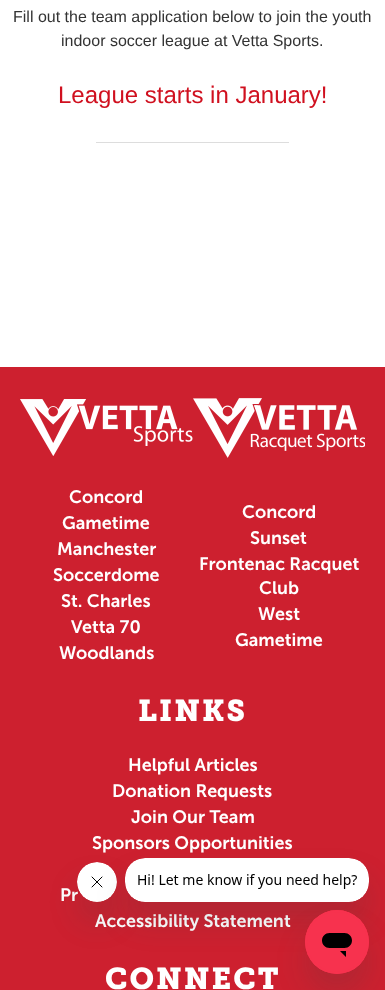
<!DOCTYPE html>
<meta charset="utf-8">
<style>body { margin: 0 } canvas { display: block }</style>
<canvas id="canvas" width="385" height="990"></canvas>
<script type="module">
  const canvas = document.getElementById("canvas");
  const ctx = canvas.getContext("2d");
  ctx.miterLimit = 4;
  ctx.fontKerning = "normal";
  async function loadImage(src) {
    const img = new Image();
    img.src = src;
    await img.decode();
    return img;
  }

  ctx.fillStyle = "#ffffff";
  ctx.fillRect(0, 0, 385, 990);
  ctx.font = "16px Liberation Sans";
  ctx.fillStyle = "#333333";
  ctx.fillText("Fill out the team application below to join the youth", 13, 22);
  ctx.fillText("indoor soccer league at Vetta Sports.", 61, 46);
  ctx.font = "24px Liberation Sans";
  ctx.fillStyle = "#d0101f";
  ctx.fillText("League starts in January!", 58, 103);
  ctx.fillStyle = "#dddddd";
  ctx.fillRect(96, 142, 193, 1);
  ctx.fillStyle = "#cd202f";
  ctx.fillRect(0, 367, 385, 623);
  ctx.drawImage(await loadImage("img1.png"), 20, 399, 173, 57);
  ctx.font = "600 18px 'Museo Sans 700'";
  ctx.fillStyle = "#ffffff";
  ctx.fillText("Concord", 69, 503);
  ctx.fillText("Gametime", 62, 529);
  ctx.fillText("Manchester", 57, 555);
  ctx.fillText("Soccerdome", 53, 581);
  ctx.fillText("St. Charles", 61, 607);
  ctx.fillText("Vetta 70", 71, 633);
  ctx.fillText("Woodlands", 59, 659);
  ctx.drawImage(await loadImage("img2.png"), 193, 398, 172, 60);
  ctx.fillText("Concord", 242, 518);
  ctx.fillText("Sunset", 250, 544);
  ctx.fillText("Frontenac Racquet", 199, 570);
  ctx.fillText("Club", 259, 594);
  ctx.fillText("West", 258, 620);
  ctx.fillText("Gametime", 235, 646);
  ctx.letterSpacing = "2px";
  ctx.font = "bold 30px 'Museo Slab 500'";
  ctx.fillText("LINKS", 138, 721);
  ctx.letterSpacing = "0px";
  ctx.font = "600 18px 'Museo Sans 700'";
  ctx.fillText("Helpful Articles", 128, 771);
  ctx.fillText("Donation Requests", 112, 797);
  ctx.fillText("Join Our Team", 131, 823);
  ctx.fillText("Sponsors Opportunities", 92, 849);
  ctx.fillText("Pr", 60, 901);
  ctx.fillText("Accessibility Statement", 95, 927);
  ctx.letterSpacing = "2px";
  ctx.font = "bold 30px 'Museo Slab 500'";
  ctx.fillText("CONNECT", 105, 989);
  ctx.fillStyle = "rgba(23, 73, 77, 0.15)";
  ctx.filter = "blur(15px)";
  ctx.beginPath();
  ctx.roundRect(77, 882, 40, 40, 20);
  ctx.fill();
  ctx.filter = "none";
  ctx.drawImage(await loadImage("img4.png"), 77, 862, 40, 40);
  ctx.filter = "blur(15px)";
  ctx.beginPath();
  ctx.roundRect(125, 878, 244, 44, 20);
  ctx.fill();
  ctx.filter = "none";
  ctx.drawImage(await loadImage("img3.png"), 125, 858, 244, 44);
  ctx.filter = "blur(15px)";
  ctx.beginPath();
  ctx.roundRect(305, 930, 64, 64, 32);
  ctx.fill();
  ctx.filter = "none";
  ctx.drawImage(await loadImage("img5.png"), 305, 910, 64, 64);
</script>
